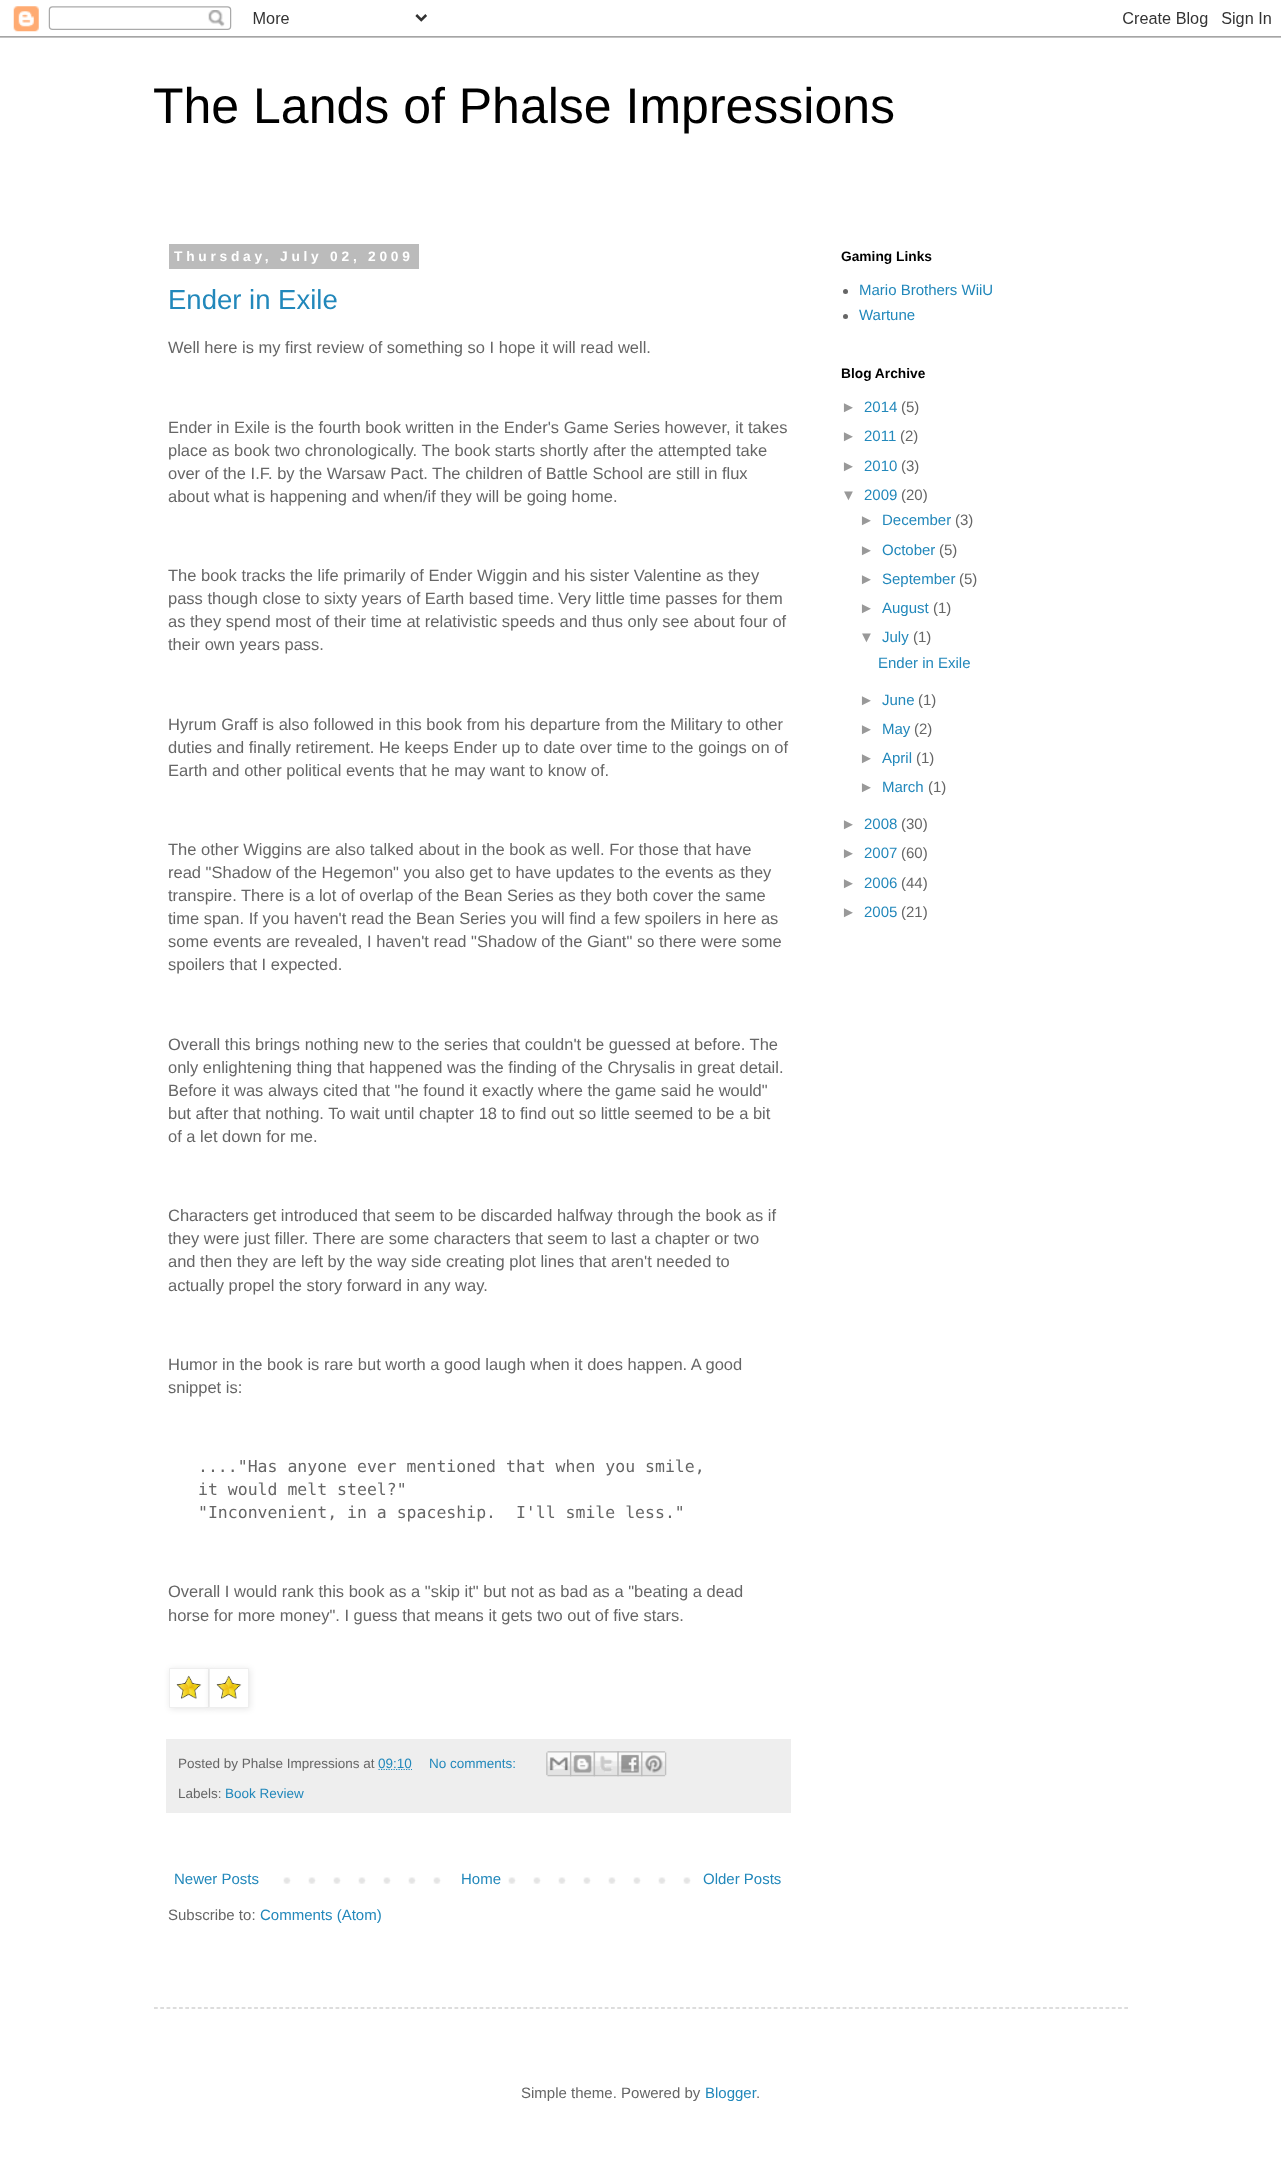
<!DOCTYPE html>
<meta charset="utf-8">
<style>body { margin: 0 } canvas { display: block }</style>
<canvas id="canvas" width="1281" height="2179"></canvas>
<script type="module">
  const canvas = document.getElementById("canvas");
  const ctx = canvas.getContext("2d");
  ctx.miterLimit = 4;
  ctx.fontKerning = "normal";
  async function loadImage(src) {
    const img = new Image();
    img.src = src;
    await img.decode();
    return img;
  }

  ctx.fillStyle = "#ffffff";
  ctx.fillRect(0, 0, 1281, 2179);
  ctx.drawImage(await loadImage("img1.png"), 0, 6, 1281, 32);
  ctx.font = "50px Liberation Sans";
  ctx.fillStyle = "#000000";
  ctx.fillText("The Lands of Phalse Impressions", 153, 123);
  ctx.fillStyle = "#bbbbbb";
  ctx.fillRect(169, 244, 250, 25);
  ctx.letterSpacing = "3.75px";
  ctx.font = "bold 13.75px Liberation Sans";
  ctx.fillStyle = "#ffffff";
  ctx.fillText("Thursday, July 02, 2009", 174, 261);
  ctx.letterSpacing = "0px";
  ctx.font = "27.5px Liberation Sans";
  ctx.fillStyle = "#2288bb";
  ctx.fillText("Ender in Exile", 168, 309);
  ctx.font = "16.5px Liberation Sans";
  ctx.fillStyle = "#666666";
  ctx.fillText("Well here is my first review of something so I hope it will read well.", 168, 353);
  ctx.fillText("Ender in Exile is the fourth book written in the Ender's Game Series however, it takes", 168, 433);
  ctx.fillText("place as book two chronologically. The book starts shortly after the attempted take", 168, 456);
  ctx.fillText("over of the I.F. by the Warsaw Pact. The children of Battle School are still in flux", 168, 479);
  ctx.fillText("about what is happening and when/if they will be going home.", 168, 502);
  ctx.fillText("The book tracks the life primarily of Ender Wiggin and his sister Valentine as they", 168, 581);
  ctx.fillText("pass though close to sixty years of Earth based time.", 168, 604);
  ctx.fillText("Very little time passes for them", 558, 604);
  ctx.fillText("as they spend most of their time at relativistic speeds and thus only see about four of", 168, 627);
  ctx.fillText("their own years pass.", 168, 650);
  ctx.fillText("Hyrum Graff is also followed in this book from his departure from the Military to other", 168, 730);
  ctx.fillText("duties and finally retirement. He keeps Ender up to date over time to the goings on of", 168, 753);
  ctx.fillText("Earth and other political events that he may want to know of.", 168, 776);
  ctx.fillText("The other Wiggins are also talked about in the book as well. For those that have", 168, 855);
  ctx.fillText("read \"Shadow of the Hegemon\" you also get to have updates to the events as they", 168, 878);
  ctx.fillText("transpire.", 168, 901);
  ctx.fillText("There is a lot of overlap of the Bean Series as they both cover the same", 241, 901);
  ctx.fillText("time span. If you haven't read the Bean Series you will find a few spoilers in here as", 168, 924);
  ctx.fillText("some events are revealed, I haven't read \"Shadow of the Giant\" so there were some", 168, 947);
  ctx.fillText("spoilers that I expected.", 168, 970);
  ctx.fillText("Overall this brings nothing new to the series that couldn't be guessed at before. The", 168, 1050);
  ctx.fillText("only enlightening thing that happened was the finding of the Chrysalis in great detail.", 168, 1073);
  ctx.fillText("Before it was always cited that \"he found it exactly where the game said he would\"", 168, 1096);
  ctx.fillText("but after that nothing. To wait until chapter 18 to find out so little seemed to be a bit", 168, 1119);
  ctx.fillText("of a let down for me.", 168, 1142);
  ctx.fillText("Characters get introduced that seem to be discarded halfway through the book as if", 168, 1221);
  ctx.fillText("they were just filler. There are some characters that seem to last a chapter or two", 168, 1244);
  ctx.fillText("and then they are left by the way side creating plot lines that aren't needed to", 168, 1267);
  ctx.fillText("actually propel the story forward in any way.", 168, 1291);
  ctx.fillText("Humor in the book is rare but worth a good laugh when it does happen. A good", 168, 1370);
  ctx.fillText("snippet is:", 168, 1393);
  ctx.font = "16.5px DejaVu Sans Mono";
  ctx.fillText("....\"Has anyone ever mentioned that when you smile,", 198, 1472);
  ctx.fillText("it would melt steel?\"", 198, 1495);
  ctx.fillText("\"Inconvenient, in a spaceship.  I'll smile less.\"", 198, 1518);
  ctx.font = "16.5px Liberation Sans";
  ctx.fillText("Overall I would rank this book as a \"skip it\" but not as bad as a \"beating a dead", 168, 1597);
  ctx.fillText("horse for more money\". I guess that means it gets two out of five stars.", 168, 1621);
  ctx.fillStyle = "rgba(0, 0, 0, 0.1)";
  ctx.filter = "blur(3px)";
  ctx.beginPath();
  ctx.rect(170, 1669, 40, 40);
  ctx.fill();
  ctx.filter = "none";
  ctx.fillStyle = "#ffffff";
  ctx.beginPath();
  ctx.rect(169.5, 1668.5, 39, 39);
  ctx.fill();
  ctx.strokeStyle = "#eeeeee";
  ctx.stroke();
  ctx.drawImage(await loadImage("img2.png"), 176, 1675, 26, 24);
  ctx.fillStyle = "rgba(0, 0, 0, 0.1)";
  ctx.filter = "blur(3px)";
  ctx.beginPath();
  ctx.rect(210, 1669, 40, 40);
  ctx.fill();
  ctx.filter = "none";
  ctx.fillStyle = "#ffffff";
  ctx.beginPath();
  ctx.rect(209.5, 1668.5, 39, 39);
  ctx.fill();
  ctx.stroke();
  ctx.drawImage(await loadImage("img2.png"), 216, 1675, 26, 24);
  ctx.fillStyle = "#eeeeee";
  ctx.fillRect(166, 1739, 625, 74);
  ctx.font = "13.5px Liberation Sans";
  ctx.fillStyle = "#666666";
  ctx.fillText("Posted by Phalse Impressions at", 178, 1768);
  ctx.beginPath();
  ctx.moveTo(378.5, 1769.5);
  ctx.lineTo(412, 1769.5);
  ctx.strokeStyle = "#2288bb";
  ctx.lineWidth = 1.2;
  ctx.setLineDash([1.25, 1.25]);
  ctx.stroke();
  ctx.fillStyle = "#2288bb";
  ctx.fillText("09:10", 378, 1768);
  ctx.fillText("No comments:", 429, 1768);
  ctx.drawImage(await loadImage("img3.png"), 546, 1751, 26, 26);
  ctx.drawImage(await loadImage("img4.png"), 570, 1751, 25, 26);
  ctx.drawImage(await loadImage("img5.png"), 593, 1751, 26, 26);
  ctx.drawImage(await loadImage("img6.png"), 617, 1751, 26, 26);
  ctx.drawImage(await loadImage("img7.png"), 641, 1751, 26, 26);
  ctx.fillStyle = "#666666";
  ctx.fillText("Labels:", 178, 1798);
  ctx.fillStyle = "#2288bb";
  ctx.fillText("Book Review", 225, 1798);
  ctx.drawImage(await loadImage("img8.png"), 283, 1877, 408, 7);
  ctx.font = "15px Liberation Sans";
  ctx.fillText("Newer Posts", 174, 1884);
  ctx.fillStyle = "#ffffff";
  ctx.fillRect(458, 1877, 33, 7);
  ctx.fillStyle = "#2288bb";
  ctx.fillText("Home", 461, 1884);
  ctx.fillText("Older Posts", 703, 1884);
  ctx.fillStyle = "#666666";
  ctx.fillText("Subscribe to:", 168, 1920);
  ctx.fillStyle = "#2288bb";
  ctx.fillText("Comments (Atom)", 260, 1920);
  ctx.font = "bold 13.75px Liberation Sans";
  ctx.fillStyle = "#000000";
  ctx.fillText("Gaming Links", 841, 261);
  ctx.fillStyle = "#666666";
  ctx.beginPath();
  ctx.arc(845.5, 291.5, 2.5, 0, Math.PI * 2);
  ctx.fill();
  ctx.font = "15px Liberation Sans";
  ctx.fillStyle = "#2288bb";
  ctx.fillText("Mario Brothers WiiU", 859, 295);
  ctx.fillStyle = "#666666";
  ctx.beginPath();
  ctx.arc(845.5, 316.5, 2.5, 0, Math.PI * 2);
  ctx.fill();
  ctx.fillStyle = "#2288bb";
  ctx.fillText("Wartune", 859, 320);
  ctx.font = "bold 13.75px Liberation Sans";
  ctx.fillStyle = "#000000";
  ctx.fillText("Blog Archive", 841, 378);
  ctx.font = "15px Liberation Sans";
  ctx.fillStyle = "#999999";
  ctx.fillText("►", 841, 412);
  ctx.fillStyle = "#2288bb";
  ctx.fillText("2014", 864, 412);
  ctx.fillStyle = "#666666";
  ctx.fillText("(5)", 901, 412);
  ctx.fillStyle = "#999999";
  ctx.fillText("►", 841, 441);
  ctx.fillStyle = "#2288bb";
  ctx.fillText("2011", 864, 441);
  ctx.fillStyle = "#666666";
  ctx.fillText("(2)", 900, 441);
  ctx.fillStyle = "#999999";
  ctx.fillText("►", 841, 471);
  ctx.fillStyle = "#2288bb";
  ctx.fillText("2010", 864, 471);
  ctx.fillStyle = "#666666";
  ctx.fillText("(3)", 901, 471);
  ctx.fillStyle = "#999999";
  ctx.fillText("▼", 841, 500);
  ctx.fillStyle = "#2288bb";
  ctx.fillText("2009", 864, 500);
  ctx.fillStyle = "#666666";
  ctx.fillText("(20)", 901, 500);
  ctx.fillStyle = "#999999";
  ctx.fillText("►", 859, 525);
  ctx.fillStyle = "#2288bb";
  ctx.fillText("December", 882, 525);
  ctx.fillStyle = "#666666";
  ctx.fillText("(3)", 955, 525);
  ctx.fillStyle = "#999999";
  ctx.fillText("►", 859, 555);
  ctx.fillStyle = "#2288bb";
  ctx.fillText("October", 882, 555);
  ctx.fillStyle = "#666666";
  ctx.fillText("(5)", 939, 555);
  ctx.fillStyle = "#999999";
  ctx.fillText("►", 859, 584);
  ctx.fillStyle = "#2288bb";
  ctx.fillText("September", 882, 584);
  ctx.fillStyle = "#666666";
  ctx.fillText("(5)", 959, 584);
  ctx.fillStyle = "#999999";
  ctx.fillText("►", 859, 613);
  ctx.fillStyle = "#2288bb";
  ctx.fillText("August", 882, 613);
  ctx.fillStyle = "#666666";
  ctx.fillText("(1)", 933, 613);
  ctx.fillStyle = "#999999";
  ctx.fillText("▼", 859, 642);
  ctx.fillStyle = "#2288bb";
  ctx.fillText("July", 882, 642);
  ctx.fillStyle = "#666666";
  ctx.fillText("(1)", 913, 642);
  ctx.fillStyle = "#2288bb";
  ctx.fillText("Ender in Exile", 878, 668);
  ctx.fillStyle = "#999999";
  ctx.fillText("►", 859, 705);
  ctx.fillStyle = "#2288bb";
  ctx.fillText("June", 882, 705);
  ctx.fillStyle = "#666666";
  ctx.fillText("(1)", 918, 705);
  ctx.fillStyle = "#999999";
  ctx.fillText("►", 859, 734);
  ctx.fillStyle = "#2288bb";
  ctx.fillText("May", 882, 734);
  ctx.fillStyle = "#666666";
  ctx.fillText("(2)", 914, 734);
  ctx.fillStyle = "#999999";
  ctx.fillText("►", 859, 763);
  ctx.fillStyle = "#2288bb";
  ctx.fillText("April", 882, 763);
  ctx.fillStyle = "#666666";
  ctx.fillText("(1)", 916, 763);
  ctx.fillStyle = "#999999";
  ctx.fillText("►", 859, 792);
  ctx.fillStyle = "#2288bb";
  ctx.fillText("March", 882, 792);
  ctx.fillStyle = "#666666";
  ctx.fillText("(1)", 928, 792);
  ctx.fillStyle = "#999999";
  ctx.fillText("►", 841, 829);
  ctx.fillStyle = "#2288bb";
  ctx.fillText("2008", 864, 829);
  ctx.fillStyle = "#666666";
  ctx.fillText("(30)", 901, 829);
  ctx.fillStyle = "#999999";
  ctx.fillText("►", 841, 858);
  ctx.fillStyle = "#2288bb";
  ctx.fillText("2007", 864, 858);
  ctx.fillStyle = "#666666";
  ctx.fillText("(60)", 901, 858);
  ctx.fillStyle = "#999999";
  ctx.fillText("►", 841, 888);
  ctx.fillStyle = "#2288bb";
  ctx.fillText("2006", 864, 888);
  ctx.fillStyle = "#666666";
  ctx.fillText("(44)", 901, 888);
  ctx.fillStyle = "#999999";
  ctx.fillText("►", 841, 917);
  ctx.fillStyle = "#2288bb";
  ctx.fillText("2005", 864, 917);
  ctx.fillStyle = "#666666";
  ctx.fillText("(21)", 901, 917);
  ctx.beginPath();
  ctx.moveTo(154, 2008);
  ctx.lineTo(1129, 2008);
  ctx.strokeStyle = "#bbbbbb";
  ctx.setLineDash([3.75, 2.51]);
  ctx.stroke();
  ctx.fillText("Simple theme. Powered by", 521, 2098);
  ctx.fillStyle = "#2288bb";
  ctx.fillText("Blogger", 705, 2098);
  ctx.fillStyle = "#666666";
  ctx.fillText(".", 756, 2098);
</script>
